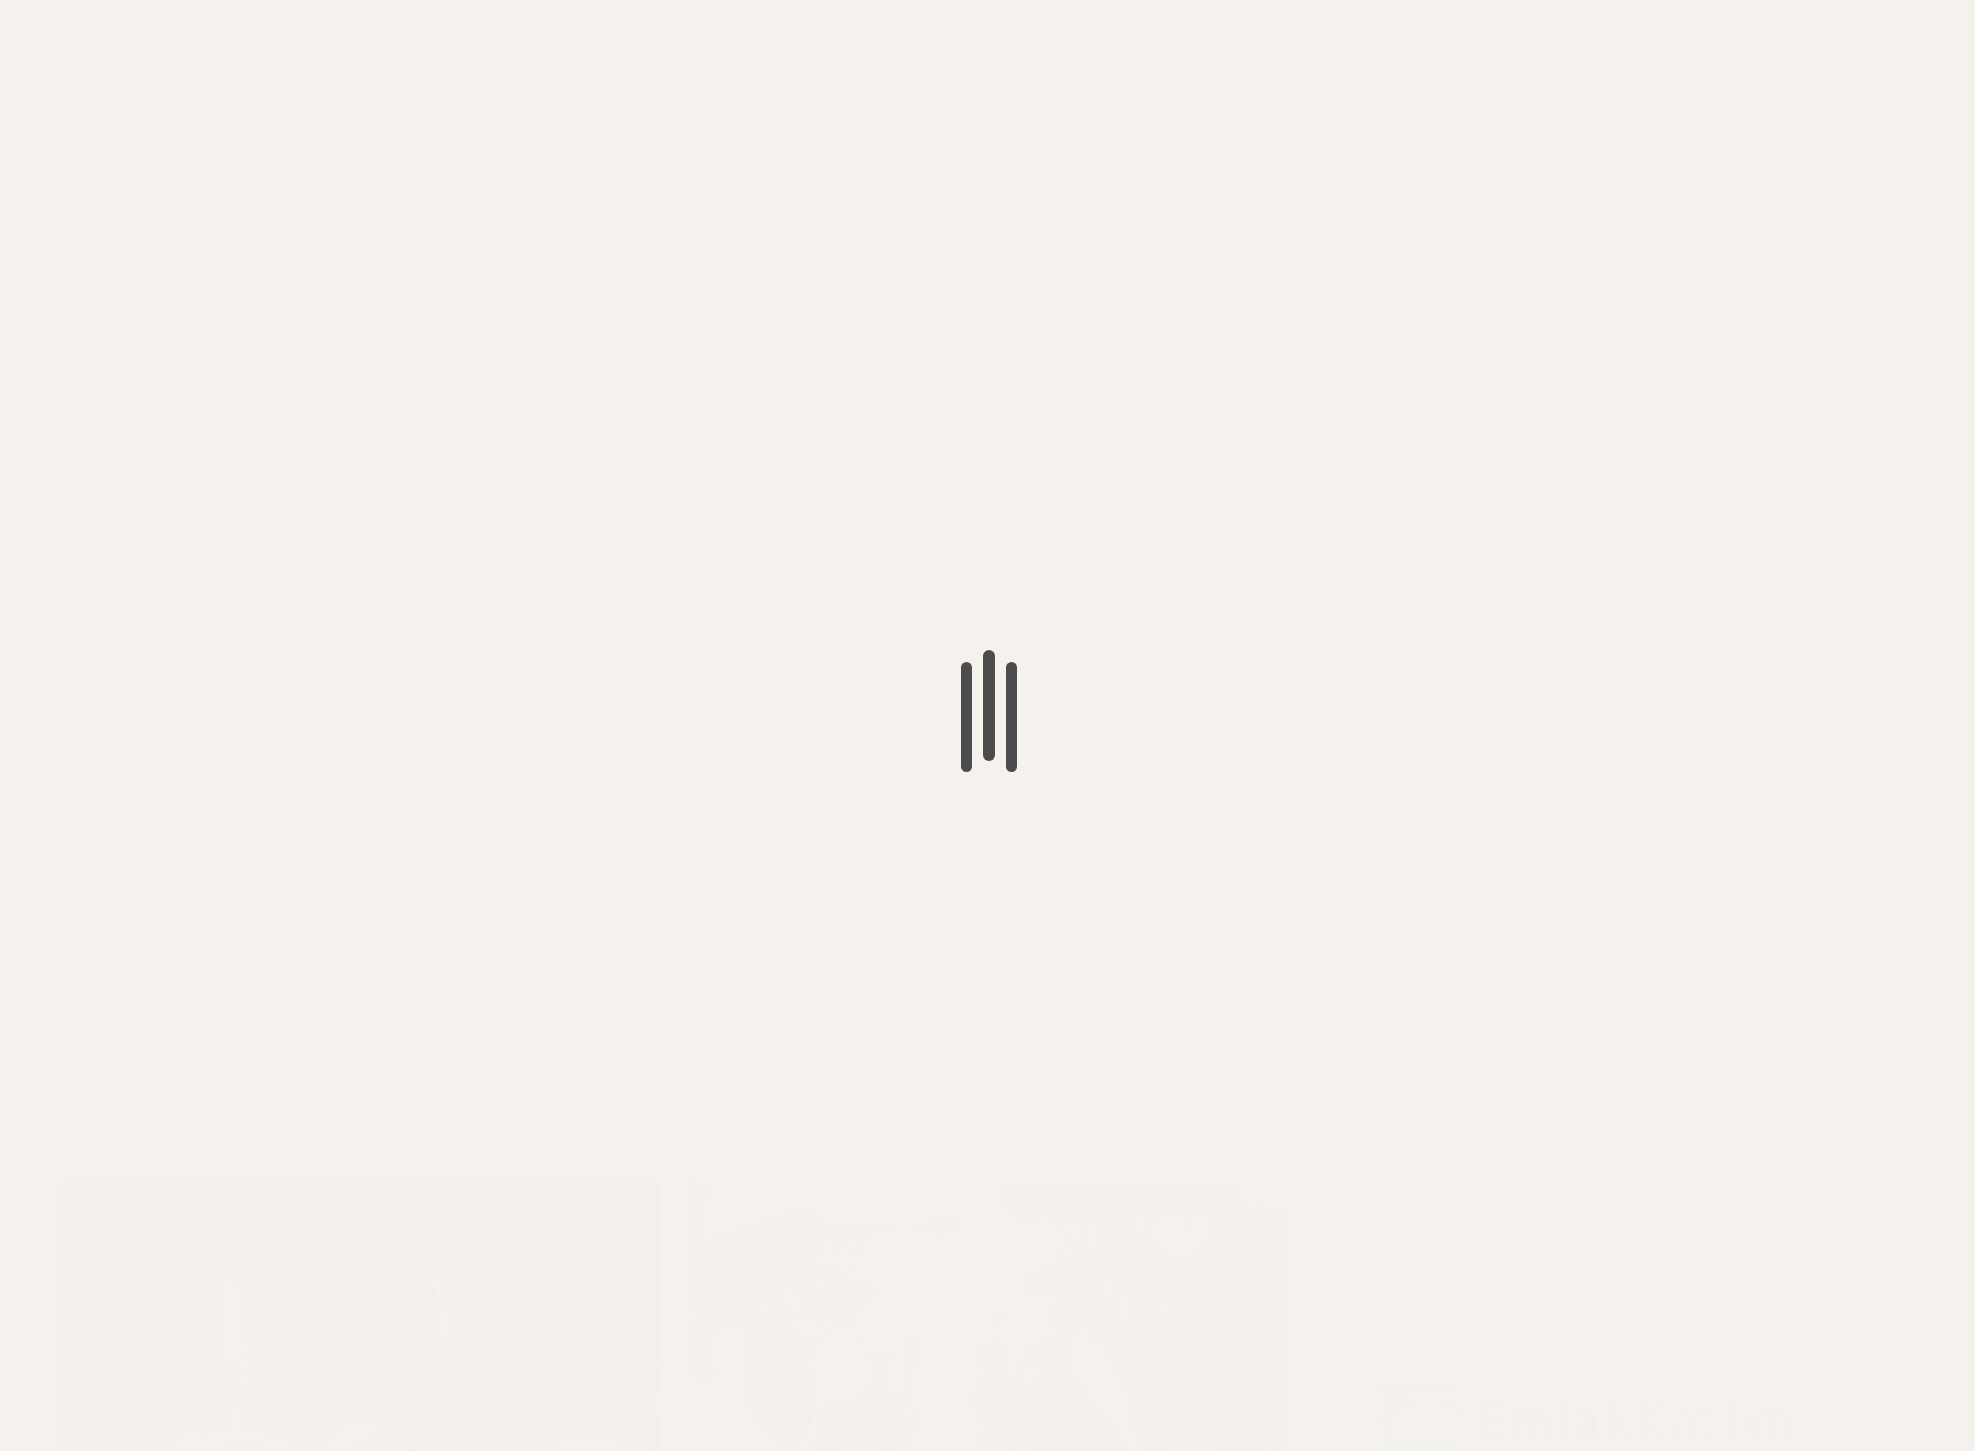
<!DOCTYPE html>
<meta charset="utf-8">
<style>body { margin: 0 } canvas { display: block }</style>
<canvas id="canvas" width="1975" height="1451"></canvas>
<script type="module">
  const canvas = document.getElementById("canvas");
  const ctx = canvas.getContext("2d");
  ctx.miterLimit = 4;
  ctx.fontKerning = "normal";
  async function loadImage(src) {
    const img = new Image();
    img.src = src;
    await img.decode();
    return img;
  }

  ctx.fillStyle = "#f5f2ee";
  ctx.fillRect(0, 0, 1975, 1451);
  ctx.drawImage(await loadImage("img1.png"), 84, 387, 49, 39);
  ctx.drawImage(await loadImage("img2.png"), 1865, 396, 30, 30);
  ctx.drawImage(await loadImage("img3.png"), 56, 1181, 604, 270);
  ctx.drawImage(await loadImage("img4.png"), 686, 1181, 604, 270);
  ctx.drawImage(await loadImage("img5.png"), 1316, 1181, 603, 270);
  ctx.fillStyle = "#4c4c4c";
  ctx.beginPath();
  ctx.roundRect(983, 650, 12, 111, 6);
  ctx.fill();
  ctx.beginPath();
  ctx.roundRect(961, 662, 11, 110, 5.5);
  ctx.fill();
  ctx.beginPath();
  ctx.roundRect(1006, 662, 11, 110, 5.5);
  ctx.fill();
</script>
